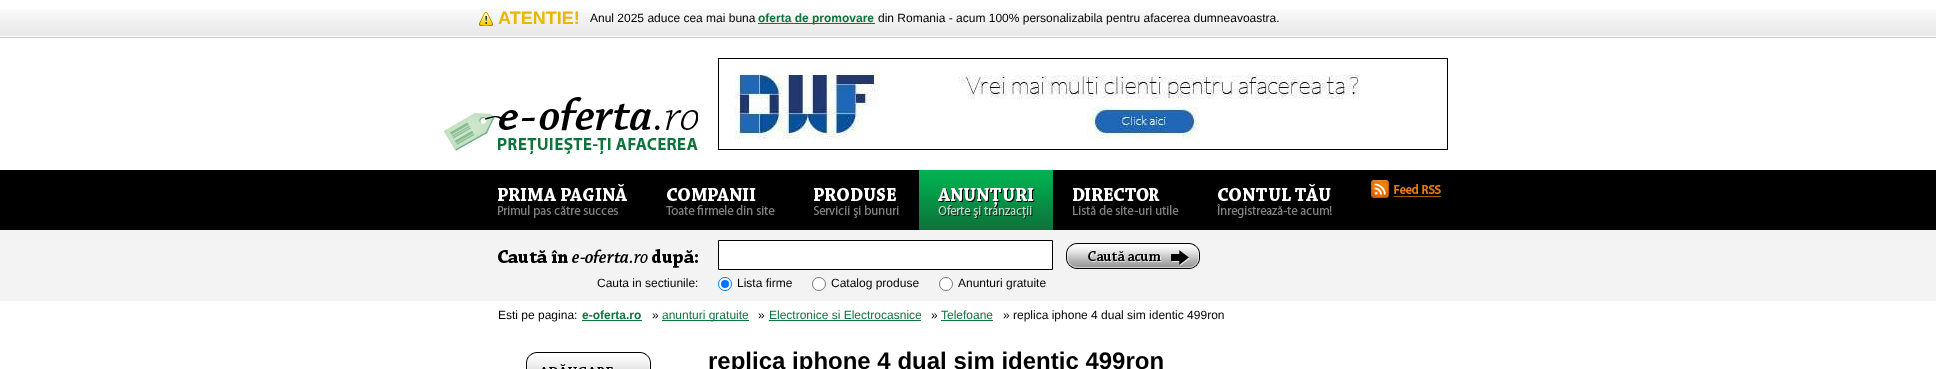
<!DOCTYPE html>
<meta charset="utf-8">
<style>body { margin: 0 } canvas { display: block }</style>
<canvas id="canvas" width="1936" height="369"></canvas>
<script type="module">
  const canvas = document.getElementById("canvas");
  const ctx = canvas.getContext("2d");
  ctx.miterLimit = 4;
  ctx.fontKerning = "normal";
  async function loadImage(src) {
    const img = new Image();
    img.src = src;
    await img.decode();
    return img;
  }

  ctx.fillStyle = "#ffffff";
  ctx.fillRect(0, 0, 1936, 369);
  ctx.drawImage(await loadImage("img1.png"), 0, 9, 1936, 29);
  ctx.drawImage(await loadImage("img2.png"), 479, 12, 14, 14);
  ctx.font = "bold 18px Liberation Sans";
  ctx.fillStyle = "#eab700";
  ctx.fillText("ATENTIE!", 498, 24);
  ctx.font = "12px Liberation Sans";
  ctx.fillStyle = "#000000";
  ctx.fillText("Anul 2025 aduce cea mai buna", 590, 22);
  ctx.fillStyle = "#0d743b";
  ctx.fillRect(758, 23, 117, 1);
  ctx.font = "bold 12px Liberation Sans";
  ctx.fillText("oferta de promovare", 758, 22);
  ctx.font = "12px Liberation Sans";
  ctx.fillStyle = "#000000";
  ctx.fillText("din Romania - acum 100% personalizabila pentru afacerea dumneavoastra.", 878, 22);
  ctx.drawImage(await loadImage("img3.png"), 444, 97, 254, 57);
  ctx.strokeStyle = "#000000";
  ctx.strokeRect(718.5, 58.5, 729, 91);
  ctx.drawImage(await loadImage("img4.png"), 734, 74, 625, 66);
  ctx.fillRect(0, 170, 1936, 60);
  ctx.drawImage(await loadImage("img5.png"), 498, 183, 129, 35);
  ctx.drawImage(await loadImage("img6.png"), 666, 188, 109, 27);
  ctx.drawImage(await loadImage("img7.png"), 813, 188, 86, 30);
  ctx.drawImage(await loadImage("img8.png"), 919, 170, 134, 60);
  ctx.drawImage(await loadImage("img9.png"), 1073, 188, 106, 27);
  ctx.drawImage(await loadImage("img10.png"), 1217, 183, 115, 35);
  ctx.drawImage(await loadImage("img11.png"), 1371, 180, 70, 18);
  ctx.fillStyle = "#f3f3f3";
  ctx.fillRect(0, 230, 1936, 71);
  ctx.drawImage(await loadImage("img12.png"), 498, 249, 200, 19);
  ctx.fillStyle = "#ffffff";
  ctx.beginPath();
  ctx.rect(718.5, 240.5, 334, 29);
  ctx.fill();
  ctx.stroke();
  ctx.drawImage(await loadImage("img13.png"), 1066, 243, 134, 26);
  ctx.fillStyle = "#000000";
  ctx.fillText("Cauta in sectiunile:", 597, 287);
  ctx.fillStyle = "#ffffff";
  ctx.beginPath();
  ctx.arc(725, 284, 6.5, 0, Math.PI * 2);
  ctx.fill();
  ctx.strokeStyle = "#0075ff";
  ctx.stroke();
  ctx.fillStyle = "#0075ff";
  ctx.beginPath();
  ctx.arc(725, 284, 4, 0, Math.PI * 2);
  ctx.fill();
  ctx.fillStyle = "#000000";
  ctx.fillText("Lista firme", 737, 287);
  ctx.fillStyle = "#ffffff";
  ctx.beginPath();
  ctx.arc(819, 284, 6.5, 0, Math.PI * 2);
  ctx.fill();
  ctx.strokeStyle = "#767676";
  ctx.stroke();
  ctx.fillStyle = "#000000";
  ctx.fillText("Catalog produse", 831, 287);
  ctx.fillStyle = "#ffffff";
  ctx.beginPath();
  ctx.arc(946, 284, 6.5, 0, Math.PI * 2);
  ctx.fill();
  ctx.stroke();
  ctx.fillStyle = "#000000";
  ctx.fillText("Anunturi gratuite", 958, 287);
  ctx.fillText("Esti pe pagina:", 498, 319);
  ctx.font = "bold 12px Liberation Sans";
  ctx.fillStyle = "#0d743b";
  ctx.fillText("e-oferta.ro", 582, 319);
  ctx.fillRect(582, 320, 60, 1);
  ctx.font = "12px Liberation Sans";
  ctx.fillStyle = "#000000";
  ctx.fillText("»", 652, 319);
  ctx.fillStyle = "#0d743b";
  ctx.fillRect(662, 320, 87, 1);
  ctx.fillText("anunturi gratuite", 662, 319);
  ctx.fillStyle = "#000000";
  ctx.fillText("»", 758, 319);
  ctx.fillStyle = "#0d743b";
  ctx.fillText("Electronice si Electrocasnice", 769, 319);
  ctx.fillRect(769, 320, 152, 1);
  ctx.fillStyle = "#000000";
  ctx.fillText("»", 931, 319);
  ctx.fillStyle = "#0d743b";
  ctx.fillText("Telefoane", 941, 319);
  ctx.fillRect(941, 320, 52, 1);
  ctx.fillStyle = "#000000";
  ctx.fillText("» replica iphone 4 dual sim identic 499ron", 1003, 319);
  ctx.drawImage(await loadImage("img14.png"), 526, 352, 125, 17);
  ctx.font = "bold 24px Liberation Sans";
  ctx.fillText("replica iphone 4 dual sim identic 499ron", 708, 369);
</script>
